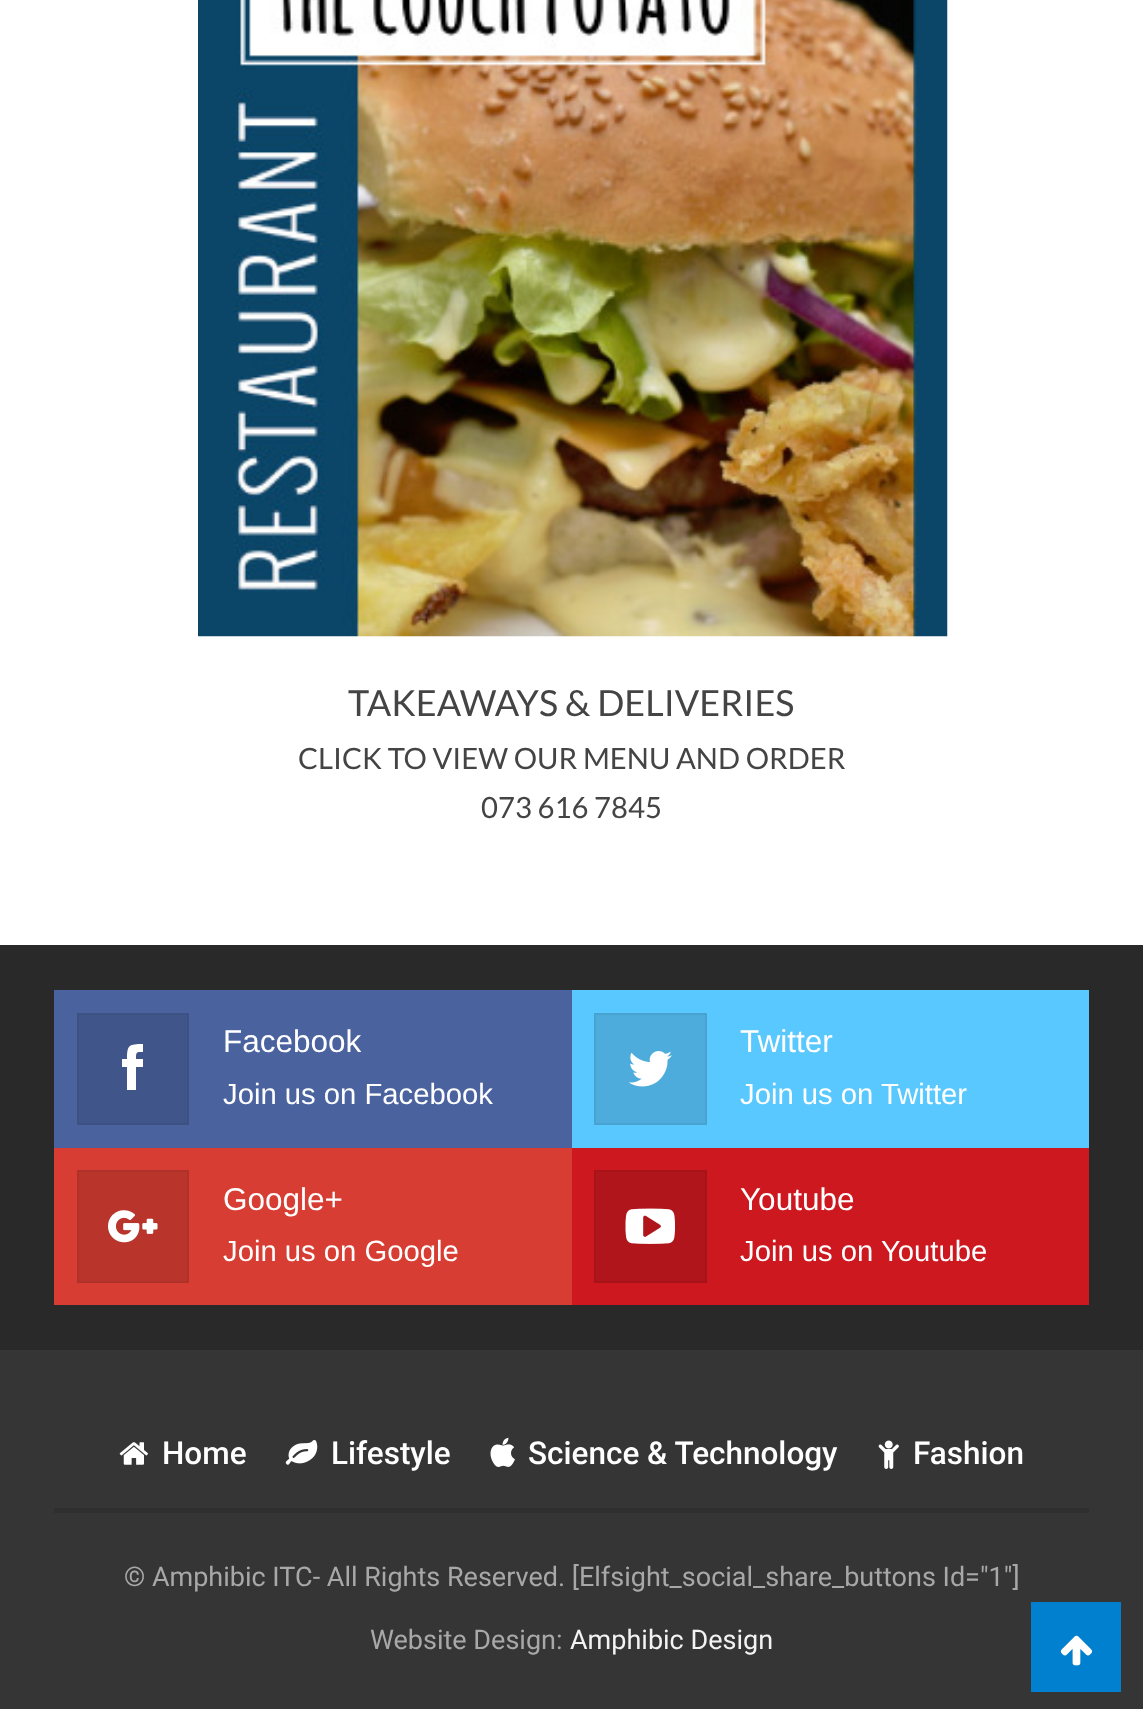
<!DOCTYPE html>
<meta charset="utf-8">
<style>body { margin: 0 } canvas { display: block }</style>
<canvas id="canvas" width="1143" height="1709"></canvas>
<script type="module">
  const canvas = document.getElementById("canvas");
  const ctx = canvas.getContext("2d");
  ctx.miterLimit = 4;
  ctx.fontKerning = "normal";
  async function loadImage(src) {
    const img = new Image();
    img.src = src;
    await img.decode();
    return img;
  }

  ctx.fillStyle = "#292929";
  ctx.fillRect(0, 0, 1143, 1709);
  ctx.fillStyle = "#ffffff";
  ctx.fillRect(0, 0, 1143, 945);
  ctx.drawImage(await loadImage("img1.png"), 198, 0, 750, 637);
  ctx.font = "36px Lato";
  ctx.fillStyle = "#444444";
  ctx.fillText("TAKEAWAYS & DELIVERIES", 348, 716);
  ctx.font = "29.25px Lato";
  ctx.fillText("CLICK TO VIEW OUR MENU AND ORDER", 298, 769);
  ctx.fillText("073 616 7845", 481, 818);
  ctx.fillStyle = "#4a639f";
  ctx.fillRect(54, 990, 518, 158);
  ctx.fillStyle = "#405589";
  ctx.beginPath();
  ctx.rect(78, 1014, 110, 110);
  ctx.fill();
  ctx.strokeStyle = "#3d5182";
  ctx.lineWidth = 2;
  ctx.stroke();
  ctx.fillStyle = "#ffffff";
  ctx.beginPath();
  ctx.moveTo(136, 1059);
  ctx.bezierCurveTo(136, 1052, 136, 1052, 143, 1052);
  ctx.lineTo(143, 1044);
  ctx.bezierCurveTo(129, 1044, 127, 1045, 127, 1059);
  ctx.lineTo(122, 1059);
  ctx.lineTo(122, 1067);
  ctx.lineTo(127, 1067);
  ctx.lineTo(127, 1090);
  ctx.lineTo(136, 1090);
  ctx.lineTo(136, 1067);
  ctx.lineTo(143, 1067);
  ctx.lineTo(143, 1059);
  ctx.closePath();
  ctx.fill();
  ctx.font = "31.5px Liberation Sans";
  ctx.fillText("Facebook", 223, 1052);
  ctx.font = "29.25px Liberation Sans";
  ctx.fillText("Join us on Facebook", 223, 1104);
  ctx.fillStyle = "#59c8ff";
  ctx.fillRect(572, 990, 517, 158);
  ctx.fillStyle = "#4dacdb";
  ctx.beginPath();
  ctx.rect(595, 1014, 111, 110);
  ctx.fill();
  ctx.strokeStyle = "#49a3d0";
  ctx.stroke();
  ctx.drawImage(await loadImage("img2.png"), 628, 1051, 44, 36);
  ctx.font = "31.5px Liberation Sans";
  ctx.fillStyle = "#ffffff";
  ctx.fillText("Twitter", 740, 1052);
  ctx.font = "29.25px Liberation Sans";
  ctx.fillText("Join us on Twitter", 740, 1104);
  ctx.fillStyle = "#d73d32";
  ctx.fillRect(54, 1148, 518, 157);
  ctx.fillStyle = "#b9342b";
  ctx.beginPath();
  ctx.rect(78, 1171, 110, 111);
  ctx.fill();
  ctx.strokeStyle = "#b03129";
  ctx.stroke();
  ctx.drawImage(await loadImage("img3.png"), 108, 1210, 50, 33);
  ctx.font = "31.5px Liberation Sans";
  ctx.fillStyle = "#ffffff";
  ctx.fillText("Google+", 223, 1210);
  ctx.font = "29.25px Liberation Sans";
  ctx.fillText("Join us on Google", 223, 1261);
  ctx.fillStyle = "#cc181e";
  ctx.fillRect(572, 1148, 517, 157);
  ctx.fillStyle = "#af151a";
  ctx.beginPath();
  ctx.rect(595, 1171, 111, 111);
  ctx.fill();
  ctx.strokeStyle = "#a61419";
  ctx.stroke();
  ctx.drawImage(await loadImage("img4.png"), 625, 1208, 50, 36);
  ctx.font = "31.5px Liberation Sans";
  ctx.fillStyle = "#ffffff";
  ctx.fillText("Youtube", 740, 1210);
  ctx.font = "29.25px Liberation Sans";
  ctx.fillText("Join us on Youtube", 740, 1261);
  ctx.fillStyle = "#353535";
  ctx.fillRect(0, 1350, 1143, 359);
  ctx.fillStyle = "#2f2f2f";
  ctx.fillRect(54, 1508, 1035, 5);
  ctx.drawImage(await loadImage("img5.png"), 119, 1442, 29, 23);
  ctx.font = "500 31.5px Roboto";
  ctx.fillStyle = "#ffffff";
  ctx.fillText("Home", 162, 1464);
  ctx.drawImage(await loadImage("img6.png"), 285, 1440, 33, 25);
  ctx.fillText("Lifestyle", 331, 1464);
  ctx.drawImage(await loadImage("img7.png"), 490, 1437, 25, 30);
  ctx.fillText("Science & Technology", 528, 1464);
  ctx.drawImage(await loadImage("img8.png"), 878, 1440, 21, 29);
  ctx.fillText("Fashion", 913, 1464);
  ctx.font = "27px Roboto";
  ctx.fillStyle = "#a8a8a8";
  ctx.fillText("© Amphibic ITC- All Rights Reserved. [Elfsight_social_share_buttons Id=\"1\"]", 124, 1586);
  ctx.fillText("Website Design:", 370, 1649);
  ctx.fillStyle = "#f3f3f3";
  ctx.fillText("Amphibic Design", 570, 1649);
  ctx.fillStyle = "#0080ce";
  ctx.fillRect(1031, 1602, 90, 90);
  ctx.drawImage(await loadImage("img9.png"), 1060, 1635, 33, 31);
</script>
